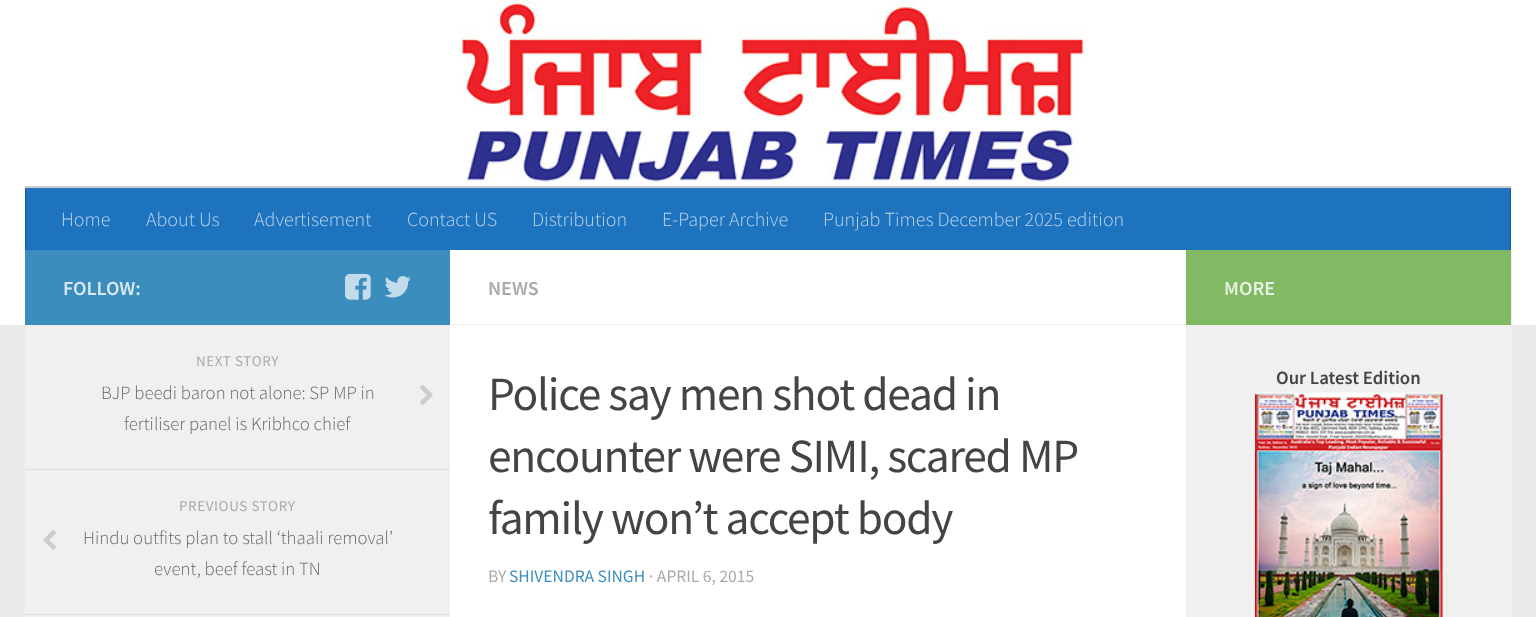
<!DOCTYPE html>
<meta charset="utf-8">
<style>body { margin: 0 } canvas { display: block }</style>
<canvas id="canvas" width="1536" height="617"></canvas>
<script type="module">
  const canvas = document.getElementById("canvas");
  const ctx = canvas.getContext("2d");
  ctx.miterLimit = 4;
  ctx.fontKerning = "normal";
  async function loadImage(src) {
    const img = new Image();
    img.src = src;
    await img.decode();
    return img;
  }

  ctx.fillStyle = "#eaeaea";
  ctx.fillRect(0, 0, 1536, 617);
  ctx.fillStyle = "#ffffff";
  ctx.fillRect(0, 0, 1536, 325);
  ctx.drawImage(await loadImage("img1.png"), 458, 0, 630, 188);
  ctx.fillStyle = "rgba(0, 0, 0, 0.2)";
  ctx.fillRect(25, 186, 1486, 2);
  ctx.fillStyle = "#1e73be";
  ctx.fillRect(26, 189, 1484, 61);
  ctx.fillStyle = "#297ac1";
  ctx.fillRect(25, 188, 1486, 1);
  ctx.fillStyle = "#185c98";
  ctx.fillRect(1510, 188, 1, 62);
  ctx.fillStyle = "#24649d";
  ctx.fillRect(1510, 188, 1, 1);
  ctx.fillStyle = "#185c98";
  ctx.fillRect(25, 188, 1, 62);
  ctx.fillStyle = "#24649d";
  ctx.fillRect(25, 188, 1, 1);
  ctx.font = "300 20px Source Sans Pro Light";
  ctx.fillStyle = "#bcd5ec";
  ctx.fillText("Home", 61, 226);
  ctx.fillText("About Us", 146, 226);
  ctx.fillText("Advertisement", 254, 226);
  ctx.fillText("Contact US", 407, 226);
  ctx.fillText("Distribution", 532, 226);
  ctx.fillText("E-Paper Archive", 662, 226);
  ctx.fillText("Punjab Times December 2025 edition", 823, 226);
  ctx.fillStyle = "#ffffff";
  ctx.fillRect(450, 325, 736, 292);
  ctx.fillStyle = "#f0f0f0";
  ctx.fillRect(1186, 250, 326, 367);
  ctx.fillRect(25, 326, 425, 291);
  ctx.fillStyle = "#3b8dbd";
  ctx.fillRect(25, 250, 425, 75);
  ctx.font = "600 20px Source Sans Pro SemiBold";
  ctx.fillStyle = "#d8e8f2";
  ctx.fillText("FOLLOW:", 63, 295);
  ctx.drawImage(await loadImage("img2.png"), 345, 273, 26, 27);
  ctx.drawImage(await loadImage("img3.png"), 384, 276, 27, 22);
  ctx.fillStyle = "#eeeeee";
  ctx.fillRect(25, 325, 425, 1);
  ctx.fillStyle = "#dddddd";
  ctx.fillRect(25, 469, 425, 1);
  ctx.letterSpacing = "0.6px";
  ctx.font = "15px Source Sans Pro";
  ctx.fillStyle = "#aaaaaa";
  ctx.fillText("NEXT STORY", 196, 366);
  ctx.letterSpacing = "0px";
  ctx.font = "300 18.75px Source Sans Pro Light";
  ctx.fillStyle = "#666666";
  ctx.fillText("BJP beedi baron not alone: SP MP in", 101, 399);
  ctx.drawImage(await loadImage("img4.png"), 420, 385, 13, 20);
  ctx.fillText("fertiliser panel is Kribhco chief", 124, 430);
  ctx.fillStyle = "#dddddd";
  ctx.fillRect(25, 614, 425, 1);
  ctx.letterSpacing = "0.6px";
  ctx.font = "15px Source Sans Pro";
  ctx.fillStyle = "#aaaaaa";
  ctx.fillText("PREVIOUS STORY", 179, 511);
  ctx.drawImage(await loadImage("img5.png"), 43, 530, 13, 20);
  ctx.letterSpacing = "0px";
  ctx.font = "300 18.75px Source Sans Pro Light";
  ctx.fillStyle = "#666666";
  ctx.fillText("Hindu outfits plan to stall ‘thaali removal’", 83, 544);
  ctx.fillText("event, beef feast in TN", 154, 575);
  ctx.fillStyle = "#eeeeee";
  ctx.fillRect(450, 324, 736, 1);
  ctx.font = "600 20px Source Sans Pro SemiBold";
  ctx.fillStyle = "#aaaaaa";
  ctx.fillText("NEWS", 488, 295);
  ctx.letterSpacing = "-1.25px";
  ctx.font = "47.5px Source Sans Pro";
  ctx.fillStyle = "#444444";
  ctx.fillText("Police say men shot dead in", 488, 410);
  ctx.fillText("encounter were SIMI, scared MP", 488, 472);
  ctx.fillText("family won’t accept body", 488, 534);
  ctx.letterSpacing = "0px";
  ctx.font = "17.5px Source Sans Pro";
  ctx.fillStyle = "#aaaaaa";
  ctx.fillText("BY", 488, 582);
  ctx.fillStyle = "#3b8dbd";
  ctx.fillText("SHIVENDRA SINGH", 509, 582);
  ctx.fillStyle = "#aaaaaa";
  ctx.fillText("· APRIL 6, 2015", 649, 582);
  ctx.fillStyle = "#82b965";
  ctx.fillRect(1186, 250, 325, 75);
  ctx.font = "600 20px Source Sans Pro SemiBold";
  ctx.fillStyle = "#e6f1e0";
  ctx.fillText("MORE", 1224, 295);
  ctx.font = "600 18.75px Source Sans Pro SemiBold";
  ctx.fillStyle = "#444444";
  ctx.fillText("Our Latest Edition", 1276, 384);
  ctx.drawImage(await loadImage("img6.png"), 1255, 392, 188, 225);
</script>
